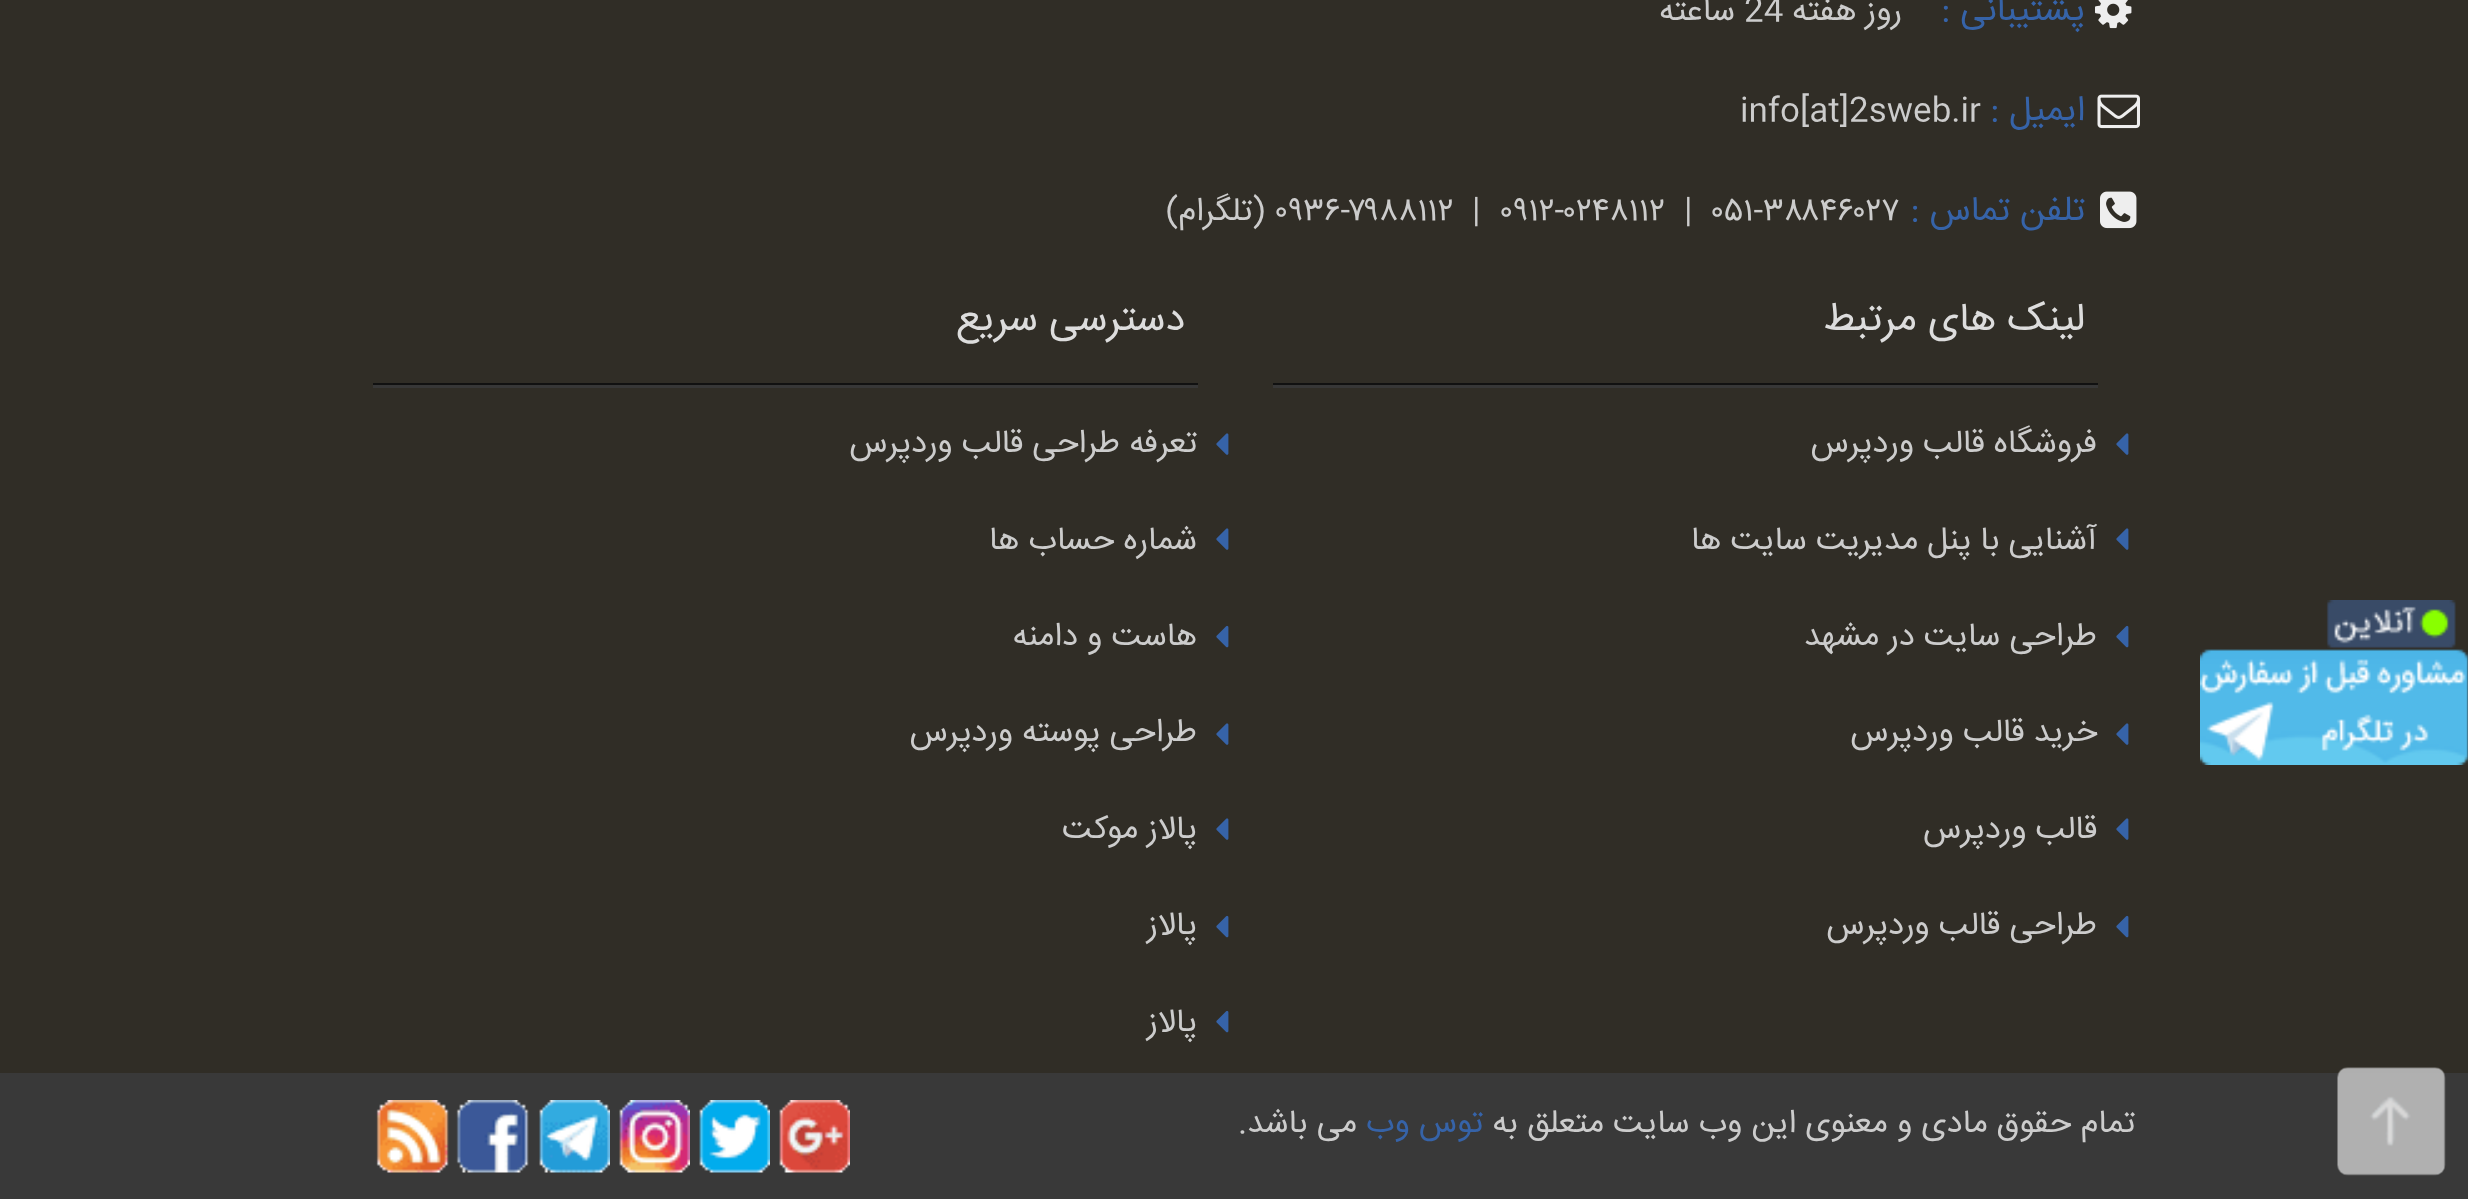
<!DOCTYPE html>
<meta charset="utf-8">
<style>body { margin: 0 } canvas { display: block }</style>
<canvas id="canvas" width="2468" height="1199"></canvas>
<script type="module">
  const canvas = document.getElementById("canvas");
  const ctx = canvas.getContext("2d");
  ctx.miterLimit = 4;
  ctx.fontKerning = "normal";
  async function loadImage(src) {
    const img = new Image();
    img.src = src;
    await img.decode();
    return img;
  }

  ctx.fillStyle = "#302d26";
  ctx.fillRect(0, 0, 2468, 1199);
  ctx.drawImage(await loadImage("img1.png"), 2200, 600, 268, 165);
  ctx.drawImage(await loadImage("img2.png"), 2095, 0, 37, 29);
  ctx.direction = "rtl";
  ctx.font = "35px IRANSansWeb";
  ctx.fillStyle = "#3663a8";
  ctx.fillText("پشتیبانی :", 2085, 20);
  ctx.font = "32.5px IRANSansWeb";
  ctx.fillStyle = "#cccccc";
  ctx.fillText("روز هفته", 1902, 20);
  ctx.direction = "ltr";
  ctx.fillText("24", 1744, 20);
  ctx.direction = "rtl";
  ctx.fillText("ساعته", 1735, 20);
  ctx.drawImage(await loadImage("img3.png"), 2097, 94, 43, 35);
  ctx.font = "35px IRANSansWeb";
  ctx.fillStyle = "#3663a8";
  ctx.fillText("ایمیل :", 2085, 120);
  ctx.direction = "ltr";
  ctx.font = "32.5px IRANSansWeb";
  ctx.fillStyle = "#cccccc";
  ctx.fillText("info[at]2sweb.ir", 1740, 120);
  ctx.drawImage(await loadImage("img4.png"), 2100, 191, 37, 38);
  ctx.direction = "rtl";
  ctx.font = "35px IRANSansWeb";
  ctx.fillStyle = "#3663a8";
  ctx.fillText("تلفن تماس :", 2085, 220);
  ctx.direction = "ltr";
  ctx.font = "32.5px IRANSansWeb";
  ctx.fillStyle = "#cccccc";
  ctx.fillText("۰۵۱-۳۸۸۴۶۰۲۷", 1710, 220);
  ctx.fillText("|", 1684, 220);
  ctx.fillText("۰۹۱۲-۰۲۴۸۱۱۲", 1499, 220);
  ctx.fillText("|", 1472, 220);
  ctx.fillText("۰۹۳۶-۷۹۸۸۱۱۲", 1274, 220);
  ctx.direction = "rtl";
  ctx.fillText("(تلگرام)", 1265, 220);
  ctx.fillStyle = "#111111";
  ctx.fillRect(1273, 383, 825, 2);
  ctx.font = "40px IRANSansWeb";
  ctx.fillStyle = "#dddddd";
  ctx.fillText("لینک های مرتبط", 2085, 330);
  ctx.fillStyle = "#373737";
  ctx.fillRect(1273, 385, 825, 3);
  ctx.drawImage(await loadImage("img5.png"), 2116, 433, 13, 22);
  ctx.font = "32.5px IRANSansWeb";
  ctx.fillStyle = "#cccccc";
  ctx.fillText("فروشگاه قالب وردپرس", 2097, 452);
  ctx.drawImage(await loadImage("img5.png"), 2116, 528, 13, 22);
  ctx.fillText("آشنایی با پنل مدیریت سایت ها", 2097, 549);
  ctx.drawImage(await loadImage("img6.png"), 2116, 625, 13, 23);
  ctx.fillText("طراحی سایت در مشهد", 2097, 645);
  ctx.drawImage(await loadImage("img5.png"), 2116, 723, 13, 22);
  ctx.fillText("خرید قالب وردپرس", 2097, 741);
  ctx.drawImage(await loadImage("img5.png"), 2116, 818, 13, 22);
  ctx.fillText("قالب وردپرس", 2097, 838);
  ctx.drawImage(await loadImage("img6.png"), 2116, 915, 13, 23);
  ctx.fillText("طراحی قالب وردپرس", 2097, 934);
  ctx.fillStyle = "#111111";
  ctx.fillRect(373, 383, 825, 2);
  ctx.font = "40px IRANSansWeb";
  ctx.fillStyle = "#dddddd";
  ctx.fillText("دسترسی سریع", 1185, 330);
  ctx.fillStyle = "#373737";
  ctx.fillRect(373, 385, 825, 3);
  ctx.drawImage(await loadImage("img5.png"), 1216, 433, 13, 22);
  ctx.font = "32.5px IRANSansWeb";
  ctx.fillStyle = "#cccccc";
  ctx.fillText("تعرفه طراحی قالب وردپرس", 1197, 452);
  ctx.drawImage(await loadImage("img5.png"), 1216, 528, 13, 22);
  ctx.fillText("شماره حساب ها", 1197, 549);
  ctx.drawImage(await loadImage("img6.png"), 1216, 625, 13, 23);
  ctx.fillText("هاست و دامنه", 1197, 645);
  ctx.drawImage(await loadImage("img5.png"), 1216, 723, 13, 22);
  ctx.fillText("طراحی پوسته وردپرس", 1197, 741);
  ctx.drawImage(await loadImage("img5.png"), 1216, 818, 13, 22);
  ctx.fillText("پالاز موکت", 1197, 838);
  ctx.drawImage(await loadImage("img6.png"), 1216, 915, 13, 23);
  ctx.fillText("پالاز", 1197, 934);
  ctx.drawImage(await loadImage("img6.png"), 1216, 1010, 13, 23);
  ctx.fillText("پالاز", 1197, 1031);
  ctx.fillStyle = "#393939";
  ctx.fillRect(0, 1073, 2468, 126);
  ctx.fillStyle = "#cccccc";
  ctx.fillText("تمام حقوق مادی و معنوی این وب سایت متعلق به", 2135, 1132);
  ctx.fillStyle = "#3663a8";
  ctx.fillText("توس وب", 1483, 1132);
  ctx.fillStyle = "#cccccc";
  ctx.fillText("می باشد.", 1357, 1132);
  ctx.drawImage(await loadImage("img7.png"), 779, 1100, 71, 73);
  ctx.drawImage(await loadImage("img8.png"), 699, 1100, 71, 73);
  ctx.drawImage(await loadImage("img9.png"), 619, 1100, 71, 73);
  ctx.drawImage(await loadImage("img10.png"), 539, 1100, 71, 73);
  ctx.drawImage(await loadImage("img11.png"), 456, 1100, 73, 73);
  ctx.drawImage(await loadImage("img12.png"), 376, 1100, 73, 73);
  ctx.fillStyle = "rgba(68, 68, 68, 0.8)";
  ctx.beginPath();
  ctx.roundRect(2338, 1068, 107, 107, 10);
  ctx.fill();
  ctx.drawImage(await loadImage("img13.png"), 2337, 1067, 109, 109);
</script>
